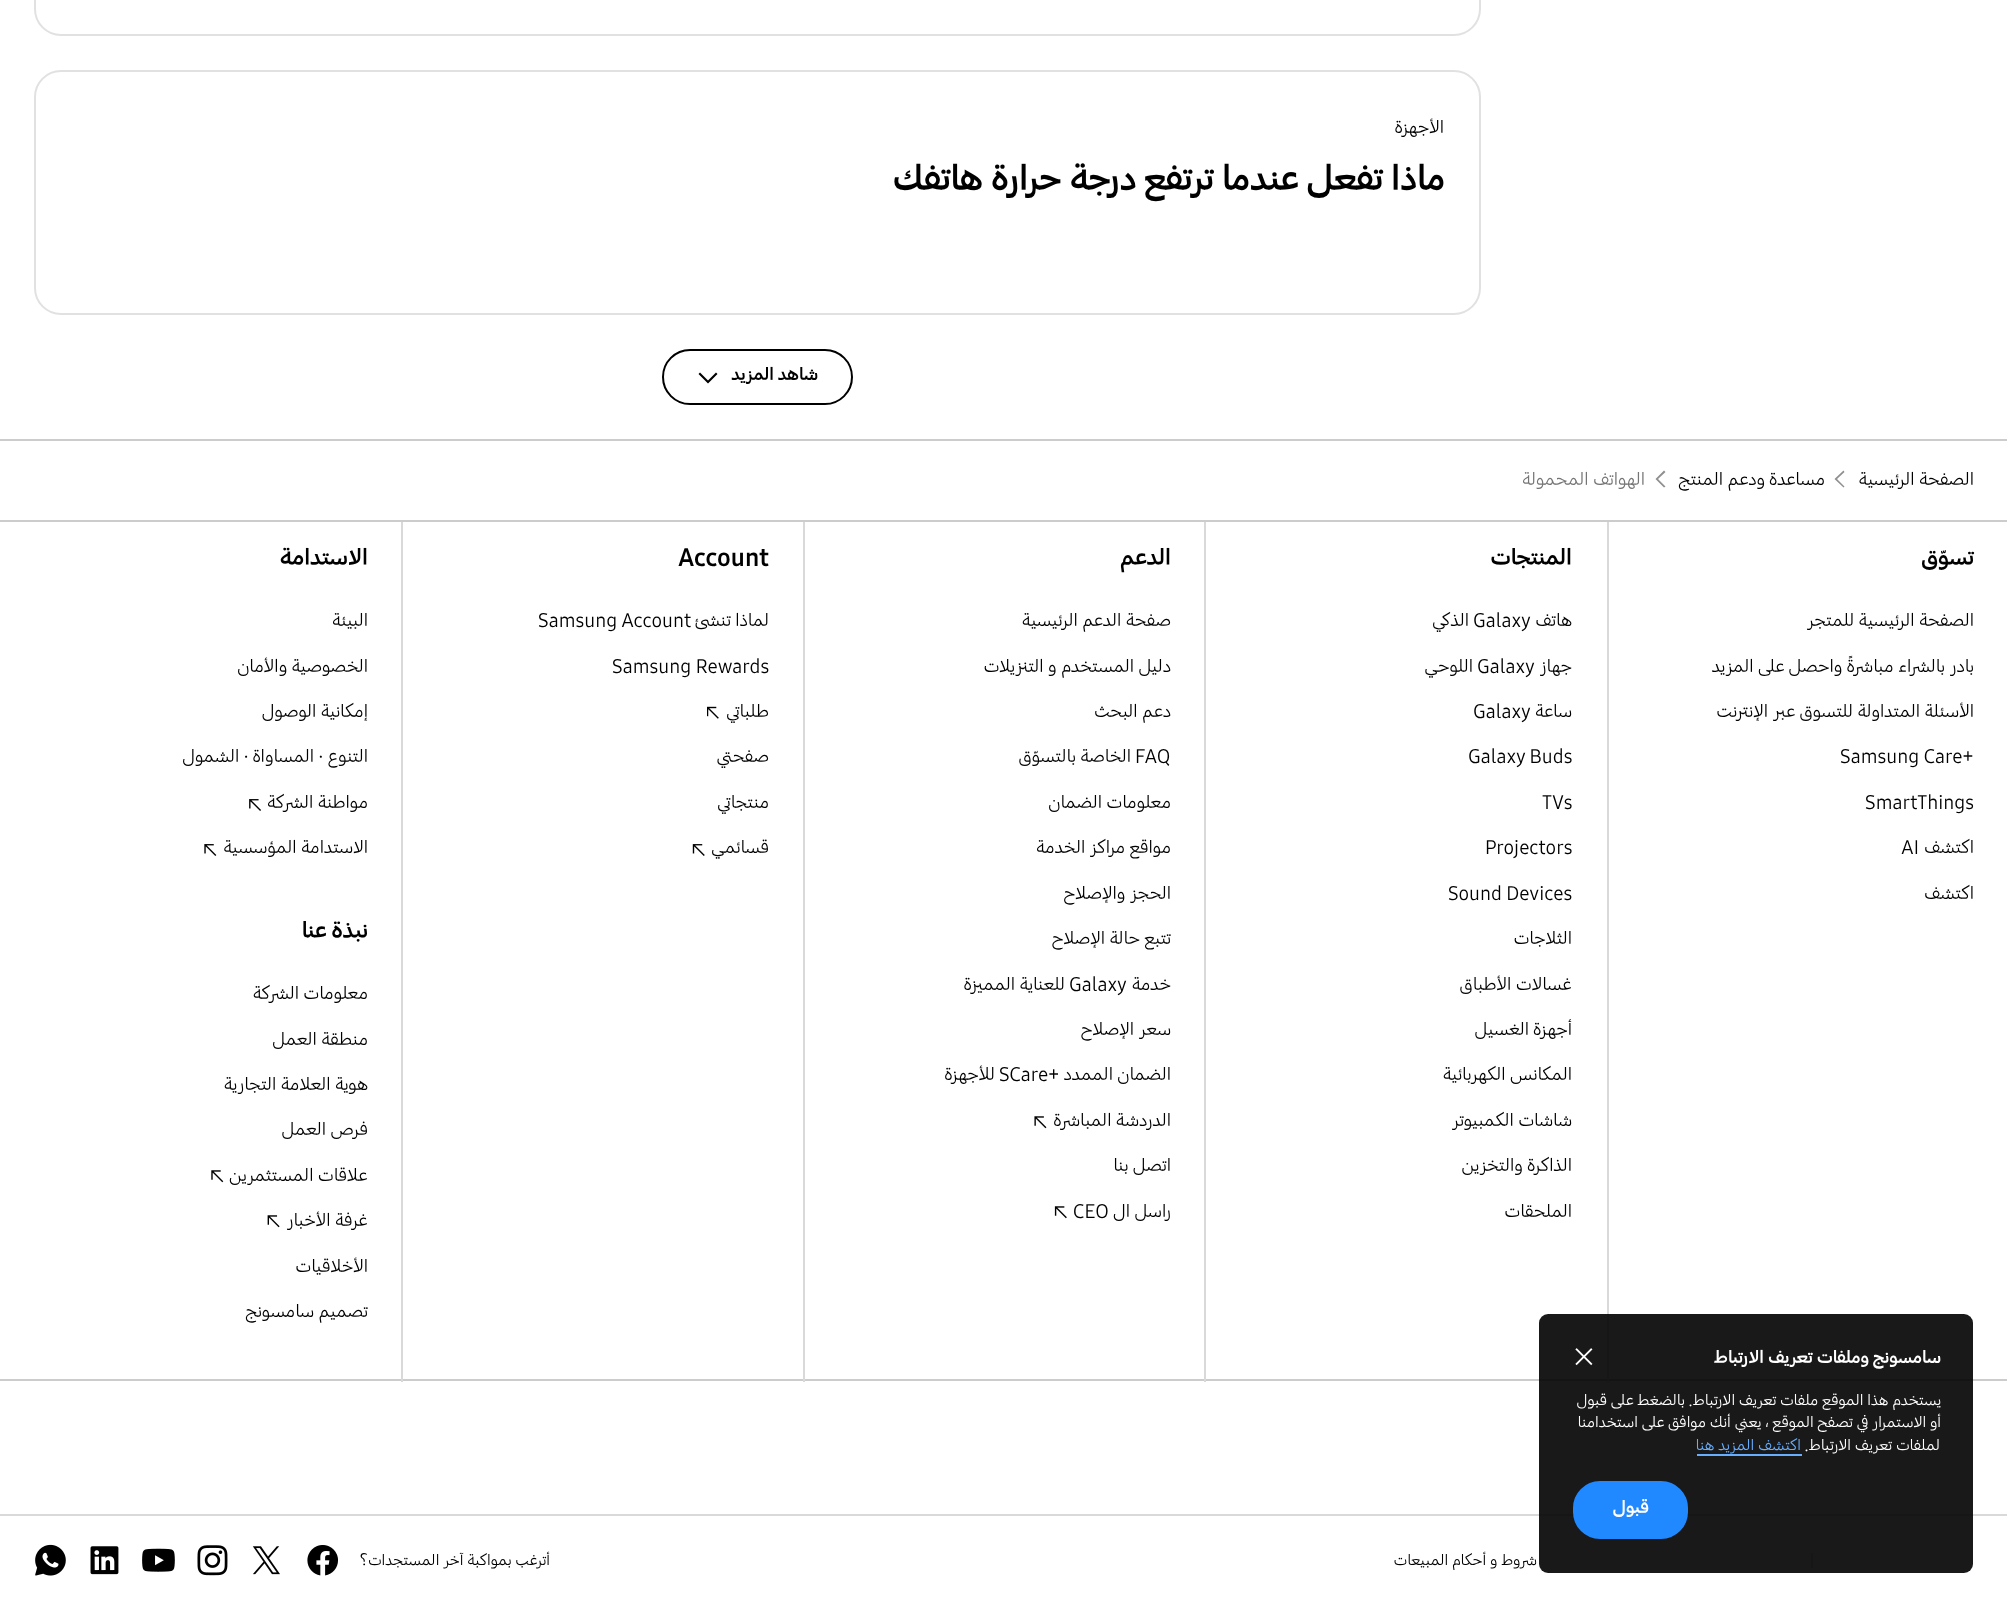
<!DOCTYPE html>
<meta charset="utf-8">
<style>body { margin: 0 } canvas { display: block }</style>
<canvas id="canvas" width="2007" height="1605"></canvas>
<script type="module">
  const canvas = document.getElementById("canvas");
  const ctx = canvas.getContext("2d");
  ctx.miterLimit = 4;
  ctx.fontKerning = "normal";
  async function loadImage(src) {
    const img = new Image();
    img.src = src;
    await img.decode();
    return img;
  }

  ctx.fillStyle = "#ffffff";
  ctx.fillRect(0, 0, 2007, 1605);
  ctx.beginPath();
  ctx.roundRect(35, -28, 1445, 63, 26);
  ctx.strokeStyle = "#e1e1e1";
  ctx.lineWidth = 2;
  ctx.stroke();
  ctx.beginPath();
  ctx.roundRect(35, 71, 1445, 243, 26);
  ctx.stroke();
  ctx.direction = "rtl";
  ctx.font = "19.5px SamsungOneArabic";
  ctx.fillStyle = "#000000";
  ctx.fillText("الأجهزة", 1444, 134);
  ctx.font = "bold 39px SamsungOneArabic";
  ctx.fillText("ماذا تفعل عندما ترتفع درجة حرارة هاتفك", 1445, 192);
  ctx.beginPath();
  ctx.roundRect(663, 350, 189, 54, 27);
  ctx.strokeStyle = "#000000";
  ctx.stroke();
  ctx.font = "bold 19.5px SamsungOneArabic";
  ctx.fillText("شاهد المزيد", 818, 381);
  ctx.beginPath();
  ctx.moveTo(708, 383.5);
  ctx.lineTo(717.5, 374);
  ctx.lineTo(716, 372.5);
  ctx.lineTo(708, 380.5);
  ctx.lineTo(700, 372.5);
  ctx.lineTo(698.5, 374);
  ctx.closePath();
  ctx.fill();
  ctx.fillStyle = "#cccccc";
  ctx.fillRect(0, 439, 2007, 2);
  ctx.font = "19.5px SamsungOneArabic";
  ctx.fillStyle = "#000000";
  ctx.fillText("الصفحة الرئيسية", 1974, 486);
  ctx.fillStyle = "#8f8f8f";
  ctx.beginPath();
  ctx.moveTo(1843.5, 487.5);
  ctx.lineTo(1844.5, 486.5);
  ctx.lineTo(1837, 479);
  ctx.lineTo(1844.5, 472);
  ctx.lineTo(1843.5, 470.5);
  ctx.lineTo(1834.5, 479);
  ctx.closePath();
  ctx.fill();
  ctx.fillStyle = "#000000";
  ctx.fillText("مساعدة ودعم المنتج", 1825, 486);
  ctx.fillStyle = "#8f8f8f";
  ctx.beginPath();
  ctx.moveTo(1664, 487.5);
  ctx.lineTo(1665.5, 486.5);
  ctx.lineTo(1658, 479);
  ctx.lineTo(1665.5, 472);
  ctx.lineTo(1664, 470.5);
  ctx.lineTo(1655.5, 479);
  ctx.closePath();
  ctx.fill();
  ctx.fillStyle = "#757575";
  ctx.fillText("الهواتف المحمولة", 1645, 486);
  ctx.fillStyle = "#cccccc";
  ctx.fillRect(0, 520, 2007, 2);
  ctx.fillRect(0, 1379, 2007, 2);
  ctx.fillStyle = "#d9d9d9";
  ctx.fillRect(1607, 522, 2, 860);
  ctx.font = "bold 25px SamsungOneArabic";
  ctx.fillStyle = "#000000";
  ctx.fillText("تسوّق", 1974, 566);
  ctx.font = "19.5px SamsungOneArabic";
  ctx.fillText("الصفحة الرئيسية للمتجر", 1974, 627);
  ctx.fillText("بادر بالشراء مباشرةً واحصل على المزيد", 1974, 673);
  ctx.fillText("الأسئلة المتداولة للتسوق عبر الإنترنت", 1974, 718);
  ctx.direction = "ltr";
  ctx.fillText("Samsung Care+", 1840, 763);
  ctx.fillText("SmartThings", 1865, 809);
  ctx.direction = "rtl";
  ctx.fillText("اكتشف", 1974, 854);
  ctx.direction = "ltr";
  ctx.fillText("AI", 1901, 854);
  ctx.direction = "rtl";
  ctx.fillText("اكتشف", 1974, 900);
  ctx.fillStyle = "#d9d9d9";
  ctx.fillRect(1204, 522, 2, 860);
  ctx.font = "bold 25px SamsungOneArabic";
  ctx.fillStyle = "#000000";
  ctx.fillText("المنتجات", 1572, 566);
  ctx.font = "19.5px SamsungOneArabic";
  ctx.fillText("هاتف", 1572, 627);
  ctx.direction = "ltr";
  ctx.fillText("Galaxy", 1473, 627);
  ctx.direction = "rtl";
  ctx.fillText("الذكي", 1469, 627);
  ctx.fillText("جهاز", 1572, 673);
  ctx.direction = "ltr";
  ctx.fillText("Galaxy", 1477, 673);
  ctx.direction = "rtl";
  ctx.fillText("اللوحي", 1473, 673);
  ctx.fillText("ساعة", 1572, 718);
  ctx.direction = "ltr";
  ctx.fillText("Galaxy", 1473, 718);
  ctx.fillText("Galaxy Buds", 1468, 763);
  ctx.fillText("TVs", 1542, 809);
  ctx.fillText("Projectors", 1485, 854);
  ctx.fillText("Sound Devices", 1448, 900);
  ctx.direction = "rtl";
  ctx.fillText("الثلاجات", 1572, 945);
  ctx.fillText("غسالات الأطباق", 1572, 991);
  ctx.fillText("أجهزة الغسيل", 1572, 1036);
  ctx.fillText("المكانس الكهربائية", 1572, 1081);
  ctx.fillText("شاشات الكمبيوتر", 1572, 1127);
  ctx.fillText("الذاكرة والتخزين", 1572, 1172);
  ctx.fillText("الملحقات", 1572, 1218);
  ctx.fillStyle = "#d9d9d9";
  ctx.fillRect(803, 522, 2, 860);
  ctx.font = "bold 25px SamsungOneArabic";
  ctx.fillStyle = "#000000";
  ctx.fillText("الدعم", 1171, 566);
  ctx.font = "19.5px SamsungOneArabic";
  ctx.fillText("صفحة الدعم الرئيسية", 1171, 627);
  ctx.fillText("دليل المستخدم و التنزيلات", 1171, 673);
  ctx.fillText("دعم البحث", 1171, 718);
  ctx.direction = "ltr";
  ctx.fillText("FAQ", 1135, 763);
  ctx.direction = "rtl";
  ctx.fillText("الخاصة بالتسوّق", 1131, 763);
  ctx.fillText("معلومات الضمان", 1171, 809);
  ctx.fillText("مواقع مراكز الخدمة", 1171, 854);
  ctx.fillText("الحجز والإصلاح", 1171, 900);
  ctx.fillText("تتبع حالة الإصلاح", 1171, 945);
  ctx.fillText("خدمة", 1171, 991);
  ctx.direction = "ltr";
  ctx.fillText("Galaxy", 1069, 991);
  ctx.direction = "rtl";
  ctx.fillText("للعناية المميزة", 1065, 991);
  ctx.fillText("سعر الإصلاح", 1171, 1036);
  ctx.fillText("الضمان الممدد +", 1171, 1081);
  ctx.direction = "ltr";
  ctx.fillText("SCare", 999, 1081);
  ctx.direction = "rtl";
  ctx.fillText("للأجهزة", 995, 1081);
  ctx.fillText("الدردشة المباشرة", 1171, 1127);
  ctx.drawImage(await loadImage("img1.png"), 1034, 1116, 13, 13);
  ctx.fillText("اتصل بنا", 1171, 1172);
  ctx.fillText("راسل ال", 1171, 1218);
  ctx.direction = "ltr";
  ctx.fillText("CEO", 1073, 1218);
  ctx.drawImage(await loadImage("img2.png"), 1054, 1206, 13, 13);
  ctx.fillStyle = "#d9d9d9";
  ctx.fillRect(401, 522, 2, 860);
  ctx.font = "bold 25px SamsungOneArabic";
  ctx.fillStyle = "#000000";
  ctx.fillText("Account", 678, 566);
  ctx.direction = "rtl";
  ctx.font = "19.5px SamsungOneArabic";
  ctx.fillText("لماذا تنشئ", 769, 627);
  ctx.direction = "ltr";
  ctx.fillText("Samsung Account", 538, 627);
  ctx.fillText("Samsung Rewards", 612, 673);
  ctx.direction = "rtl";
  ctx.fillText("طلباتي", 769, 718);
  ctx.drawImage(await loadImage("img3.png"), 707, 706, 12, 13);
  ctx.fillText("صفحتي", 769, 763);
  ctx.fillText("منتجاتي", 769, 809);
  ctx.fillText("قسائمي", 769, 854);
  ctx.drawImage(await loadImage("img4.png"), 692, 844, 13, 12);
  ctx.font = "bold 25px SamsungOneArabic";
  ctx.fillText("الاستدامة", 368, 566);
  ctx.font = "19.5px SamsungOneArabic";
  ctx.fillText("البيئة", 368, 627);
  ctx.fillText("الخصوصية والأمان", 368, 673);
  ctx.fillText("إمكانية الوصول", 368, 718);
  ctx.fillText("التنوع · المساواة · الشمول", 368, 763);
  ctx.fillText("مواطنة الشركة", 368, 809);
  ctx.drawImage(await loadImage("img5.png"), 249, 799, 12, 12);
  ctx.fillText("الاستدامة المؤسسية", 368, 854);
  ctx.drawImage(await loadImage("img6.png"), 204, 844, 13, 12);
  ctx.font = "bold 25px SamsungOneArabic";
  ctx.fillText("نبذة عنا", 368, 939);
  ctx.font = "19.5px SamsungOneArabic";
  ctx.fillText("معلومات الشركة", 368, 1000);
  ctx.fillText("منطقة العمل", 368, 1046);
  ctx.fillText("هوية العلامة التجارية", 368, 1091);
  ctx.fillText("فرص العمل", 368, 1136);
  ctx.fillText("علاقات المستثمرين", 368, 1182);
  ctx.drawImage(await loadImage("img7.png"), 211, 1170, 13, 13);
  ctx.fillText("غرفة الأخبار", 368, 1227);
  ctx.drawImage(await loadImage("img8.png"), 267, 1215, 13, 13);
  ctx.fillText("الأخلاقيات", 368, 1273);
  ctx.fillText("تصميم سامسونج", 368, 1318);
  ctx.fillStyle = "#d9d9d9";
  ctx.fillRect(0, 1514, 2007, 2);
  ctx.fillRect(1811, 1553, 2, 15);
  ctx.font = "16.75px SamsungOneArabic";
  ctx.fillStyle = "#000000";
  ctx.fillText("شروط و أحكام المبيعات", 1537, 1566);
  ctx.fillText("أترغب بمواكبة آخر المستجدات؟", 550, 1566);
  ctx.drawImage(await loadImage("img9.png"), 307, 1545, 31, 31);
  ctx.drawImage(await loadImage("img10.png"), 252, 1546, 28, 29);
  ctx.drawImage(await loadImage("img11.png"), 197, 1545, 31, 31);
  ctx.drawImage(await loadImage("img12.png"), 142, 1548, 33, 24);
  ctx.drawImage(await loadImage("img13.png"), 90, 1546, 29, 29);
  ctx.drawImage(await loadImage("img14.png"), 35, 1544, 31, 32);
  ctx.fillStyle = "rgba(0, 0, 0, 0.9)";
  ctx.beginPath();
  ctx.roundRect(1539, 1314, 434, 259, 9);
  ctx.fill();
  ctx.drawImage(await loadImage("img15.png"), 1575, 1348, 18, 18);
  ctx.font = "bold 19.5px SamsungOneArabic";
  ctx.fillStyle = "#ffffff";
  ctx.fillText("سامسونج وملفات تعريف الارتباط", 1941, 1364);
  ctx.font = "16.75px SamsungOneArabic";
  ctx.fillText("يستخدم هذا الموقع ملفات تعريف الارتباط. بالضغط على قبول", 1941, 1406);
  ctx.fillText("أو الاستمرار في تصفح الموقع ، يعني أنك موافق على استخدامنا", 1941, 1428);
  ctx.fillText("لملفات تعريف الارتباط.", 1940, 1451);
  ctx.fillStyle = "#68aeff";
  ctx.fillText("اكتشف المزيد هنا", 1801, 1451);
  ctx.fillRect(1697, 1454, 105, 2);
  ctx.fillStyle = "#2189ff";
  ctx.beginPath();
  ctx.roundRect(1574, 1482, 113, 56, 26);
  ctx.fill();
  ctx.strokeStyle = "#2189ff";
  ctx.stroke();
  ctx.font = "bold 19.5px SamsungOneArabic";
  ctx.fillStyle = "#ffffff";
  ctx.fillText("قبول", 1649, 1514);
</script>
